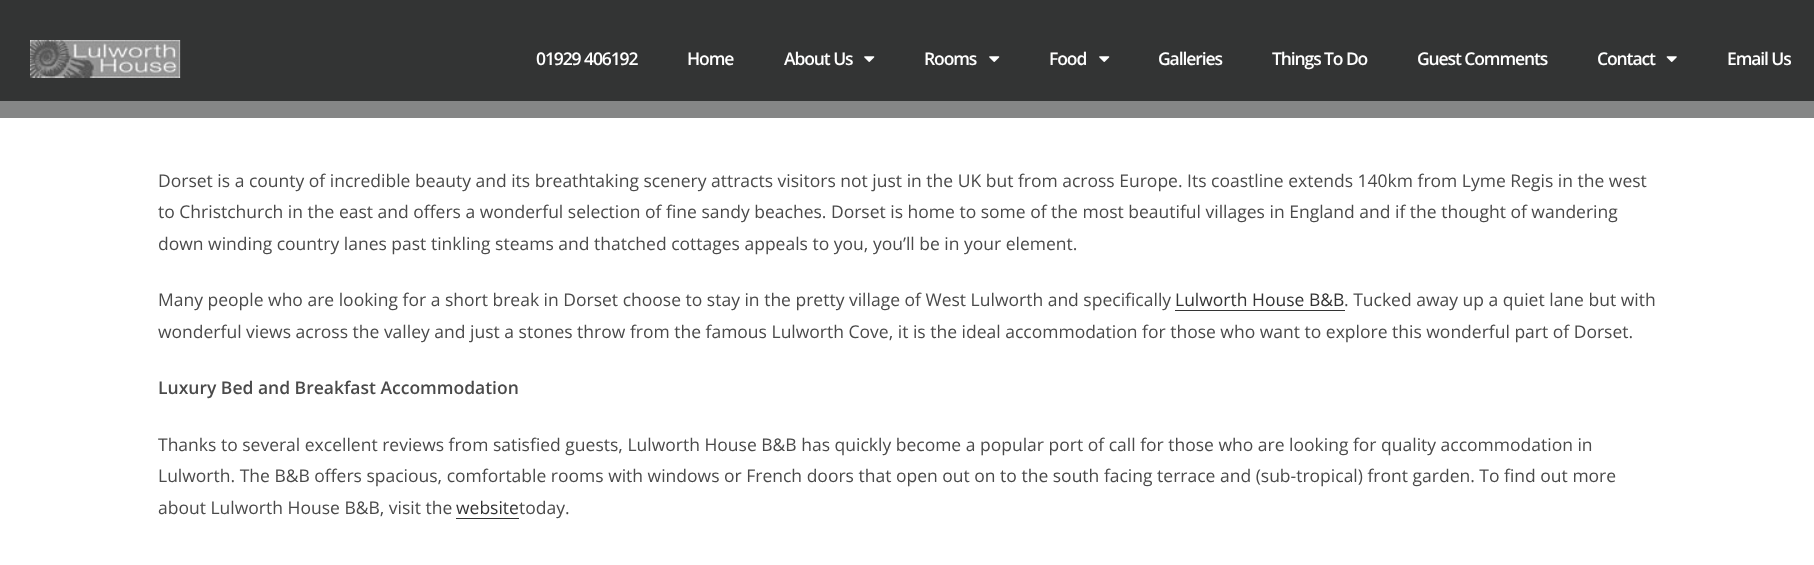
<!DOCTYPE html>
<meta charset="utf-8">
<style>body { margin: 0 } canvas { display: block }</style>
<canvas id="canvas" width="1814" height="565"></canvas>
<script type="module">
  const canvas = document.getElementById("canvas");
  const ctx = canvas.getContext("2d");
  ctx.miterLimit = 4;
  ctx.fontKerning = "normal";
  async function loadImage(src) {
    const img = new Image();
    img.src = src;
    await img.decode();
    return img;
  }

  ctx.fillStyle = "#ffffff";
  ctx.fillRect(0, 0, 1814, 565);
  ctx.fillStyle = "#858686";
  ctx.fillRect(0, 101, 1814, 17);
  ctx.fillStyle = "#333434";
  ctx.fillRect(0, 0, 1814, 101);
  ctx.drawImage(await loadImage("img1.png"), 30, 40, 151, 38);
  ctx.letterSpacing = "-1.1px";
  ctx.font = "600 17.5px Open Sans";
  ctx.fillStyle = "#ffffff";
  ctx.fillText("01929 406192", 536, 65);
  ctx.fillText("Home", 687, 65);
  ctx.fillText("About Us", 784, 65);
  ctx.drawImage(await loadImage("img2.png"), 864, 56, 11, 6);
  ctx.fillText("Rooms", 924, 65);
  ctx.drawImage(await loadImage("img2.png"), 989, 56, 11, 6);
  ctx.fillText("Food", 1049, 65);
  ctx.drawImage(await loadImage("img2.png"), 1099, 56, 11, 6);
  ctx.fillText("Galleries", 1158, 65);
  ctx.fillText("Things To Do", 1272, 65);
  ctx.fillText("Guest Comments", 1417, 65);
  ctx.fillText("Contact", 1597, 65);
  ctx.drawImage(await loadImage("img3.png"), 1666, 56, 11, 6);
  ctx.fillText("Email Us", 1727, 65);
  ctx.letterSpacing = "0px";
  ctx.font = "17.5px Open Sans";
  ctx.fillStyle = "#4a4a4a";
  ctx.fillText("Dorset is a county of incredible beauty and its breathtaking scenery attracts visitors not just in the UK but from across Europe. Its coastline extends 140km from Lyme Regis in the west", 158, 187);
  ctx.fillText("to Christchurch in the east and offers a wonderful selection of fine sandy beaches. Dorset is home to some of the most beautiful villages in England and if the thought of wandering", 158, 218);
  ctx.fillText("down winding country lanes past tinkling steams and thatched cottages appeals to you, you’ll be in your element.", 158, 250);
  ctx.fillText("Many people who are looking for a short break in Dorset choose to stay in the pretty village of West Lulworth and specifically", 158, 306);
  ctx.fillStyle = "#333333";
  ctx.fillText("Lulworth House B&B", 1175, 306);
  ctx.fillRect(1175, 310, 170, 1);
  ctx.fillStyle = "#4a4a4a";
  ctx.fillText(". Tucked away up a quiet lane but with", 1344, 306);
  ctx.fillText("wonderful views across the valley and just a stones throw from the famous Lulworth Cove, it is the ideal accommodation for those who want to explore this wonderful part of Dorset.", 158, 338);
  ctx.font = "600 17.5px Open Sans";
  ctx.fillText("Luxury Bed and Breakfast Accommodation", 158, 394);
  ctx.font = "17.5px Open Sans";
  ctx.fillText("Thanks to several excellent reviews from satisfied guests, Lulworth House B&B has quickly become a popular port of call for those who are looking for quality accommodation in", 158, 451);
  ctx.fillText("Lulworth. The B&B offers spacious, comfortable rooms with windows or French doors that open out on to the south facing terrace and (sub-tropical) front garden. To find out more", 158, 482);
  ctx.fillText("about Lulworth House B&B, visit the", 158, 514);
  ctx.fillStyle = "#333333";
  ctx.fillText("website", 456, 514);
  ctx.fillRect(456, 518, 63, 1);
  ctx.fillStyle = "#4a4a4a";
  ctx.fillText("today.", 519, 514);
</script>
